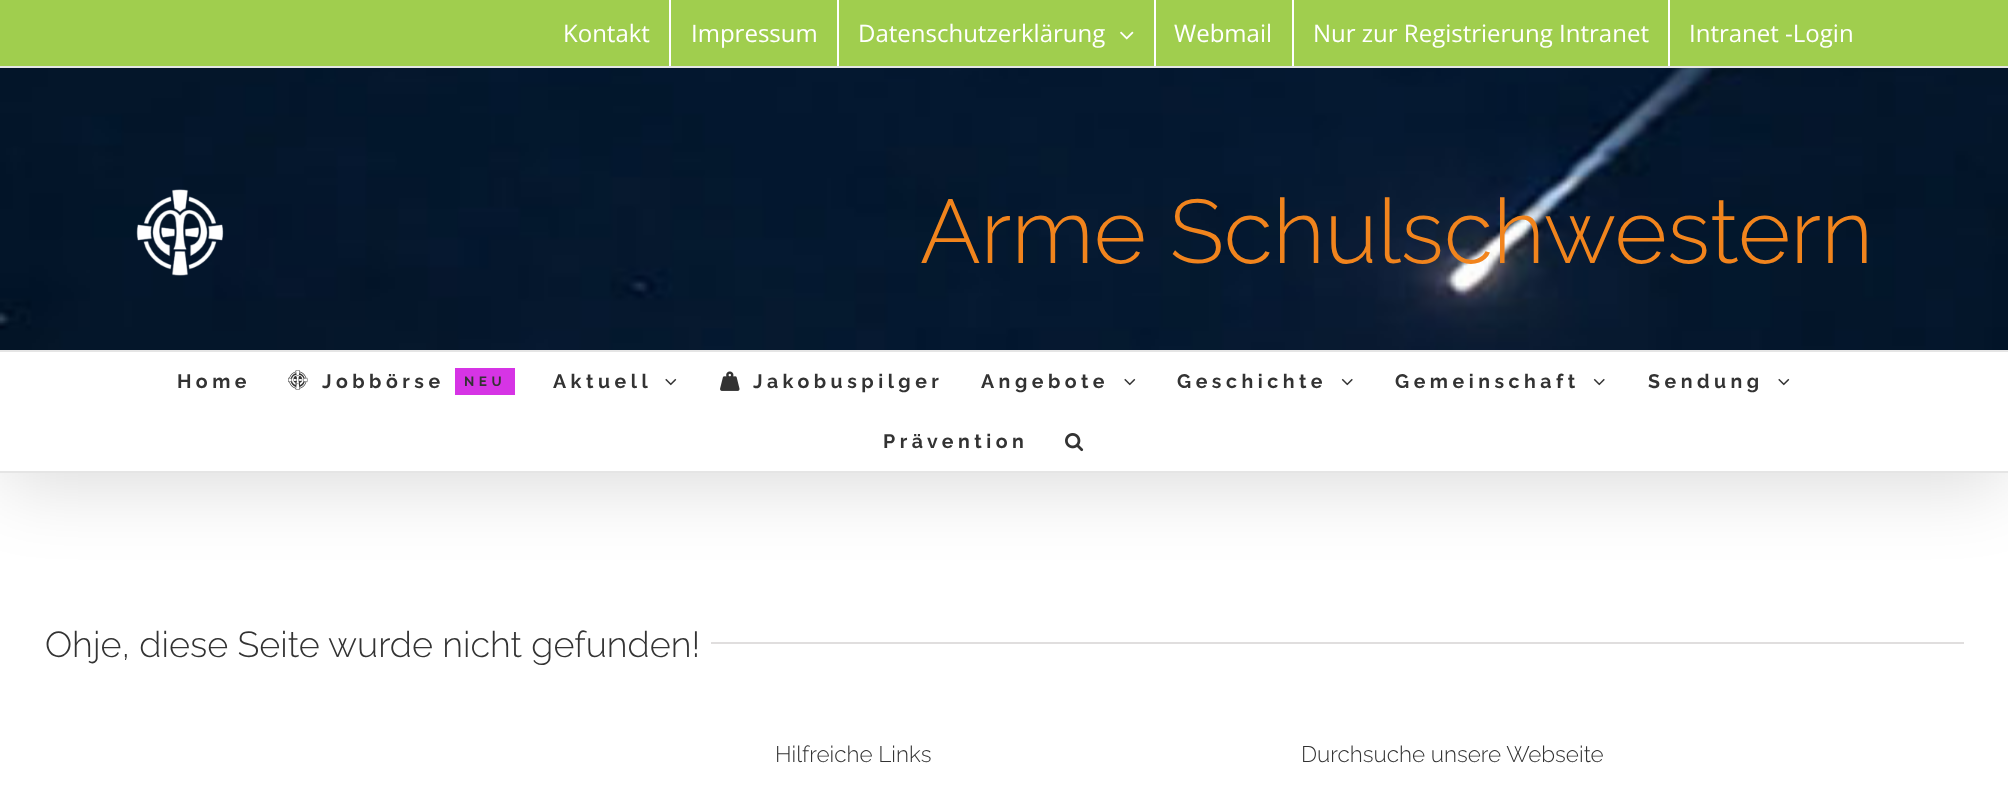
<!DOCTYPE html>
<meta charset="utf-8">
<style>body { margin: 0 } canvas { display: block }</style>
<canvas id="canvas" width="2008" height="795"></canvas>
<script type="module">
  const canvas = document.getElementById("canvas");
  const ctx = canvas.getContext("2d");
  ctx.miterLimit = 4;
  ctx.fontKerning = "normal";
  async function loadImage(src) {
    const img = new Image();
    img.src = src;
    await img.decode();
    return img;
  }

  ctx.fillStyle = "#ffffff";
  ctx.fillRect(0, 0, 2008, 795);
  ctx.fillStyle = "rgba(0, 0, 0, 0.14)";
  ctx.filter = "blur(37.5px)";
  ctx.beginPath();
  ctx.rect(3, 18, 2003, 467);
  ctx.fill();
  ctx.filter = "none";
  ctx.fillStyle = "#a0ce4e";
  ctx.fillRect(0, 0, 2008, 66);
  ctx.fillStyle = "#e5e5e5";
  ctx.fillRect(0, 66, 2008, 2);
  ctx.font = "24px Open Sans";
  ctx.fillStyle = "#ffffff";
  ctx.fillText("Kontakt", 563, 42);
  ctx.fillRect(669, 0, 2, 66);
  ctx.fillText("Impressum", 691, 42);
  ctx.fillRect(837, 0, 2, 66);
  ctx.fillText("Datenschutzerklärung", 858, 42);
  ctx.drawImage(await loadImage("img1.png"), 1120, 31, 14, 9);
  ctx.fillRect(1154, 0, 2, 66);
  ctx.fillText("Webmail", 1174, 42);
  ctx.fillRect(1292, 0, 2, 66);
  ctx.fillText("Nur zur Registrierung Intranet", 1313, 42);
  ctx.fillRect(1668, 0, 2, 66);
  ctx.fillText("Intranet -Login", 1689, 42);
  ctx.drawImage(await loadImage("img2.png"), 0, 68, 2008, 282);
  ctx.fillStyle = "#e5e5e5";
  ctx.fillRect(0, 350, 2008, 2);
  ctx.drawImage(await loadImage("img3.png"), 136, 189, 88, 87);
  ctx.font = "300 90px Raleway";
  ctx.fillStyle = "#f1841d";
  ctx.fillText("Arme Schulschwestern", 920, 263);
  ctx.fillStyle = "#ffffff";
  ctx.fillRect(0, 352, 2008, 119);
  ctx.fillStyle = "#e5e5e5";
  ctx.fillRect(0, 471, 2008, 2);
  ctx.letterSpacing = "4.5px";
  ctx.font = "bold 19.5px Raleway";
  ctx.fillStyle = "#333333";
  ctx.fillText("Home", 177, 388);
  ctx.drawImage(await loadImage("img4.png"), 288, 370, 20, 20);
  ctx.fillText("Jobbörse", 322, 388);
  ctx.fillStyle = "#d634e5";
  ctx.fillRect(455, 368, 60, 27);
  ctx.font = "bold 13.5px Raleway";
  ctx.fillStyle = "#333333";
  ctx.fillText("NEU", 464, 386);
  ctx.font = "bold 19.5px Raleway";
  ctx.fillText("Aktuell", 553, 388);
  ctx.drawImage(await loadImage("img5.png"), 665, 378, 12, 8);
  ctx.drawImage(await loadImage("img6.png"), 720, 371, 20, 20);
  ctx.fillText("Jakobuspilger", 753, 388);
  ctx.fillText("Angebote", 981, 388);
  ctx.drawImage(await loadImage("img5.png"), 1124, 378, 12, 8);
  ctx.fillText("Geschichte", 1177, 388);
  ctx.drawImage(await loadImage("img7.png"), 1341, 378, 12, 8);
  ctx.fillText("Gemeinschaft", 1395, 388);
  ctx.drawImage(await loadImage("img7.png"), 1593, 378, 12, 8);
  ctx.fillText("Sendung", 1648, 388);
  ctx.drawImage(await loadImage("img5.png"), 1778, 378, 12, 8);
  ctx.fillText("Prävention", 883, 448);
  ctx.drawImage(await loadImage("img8.png"), 1065, 433, 19, 19);
  ctx.letterSpacing = "0px";
  ctx.font = "300 36px Raleway";
  ctx.fillText("Ohje, diese Seite wurde nicht gefunden!", 45, 657);
  ctx.fillStyle = "#e0dede";
  ctx.fillRect(711, 642, 1253, 2);
  ctx.font = "300 22.5px Raleway";
  ctx.fillStyle = "#333333";
  ctx.fillText("Hilfreiche Links", 775, 762);
  ctx.fillText("Durchsuche unsere Webseite", 1301, 762);
</script>
